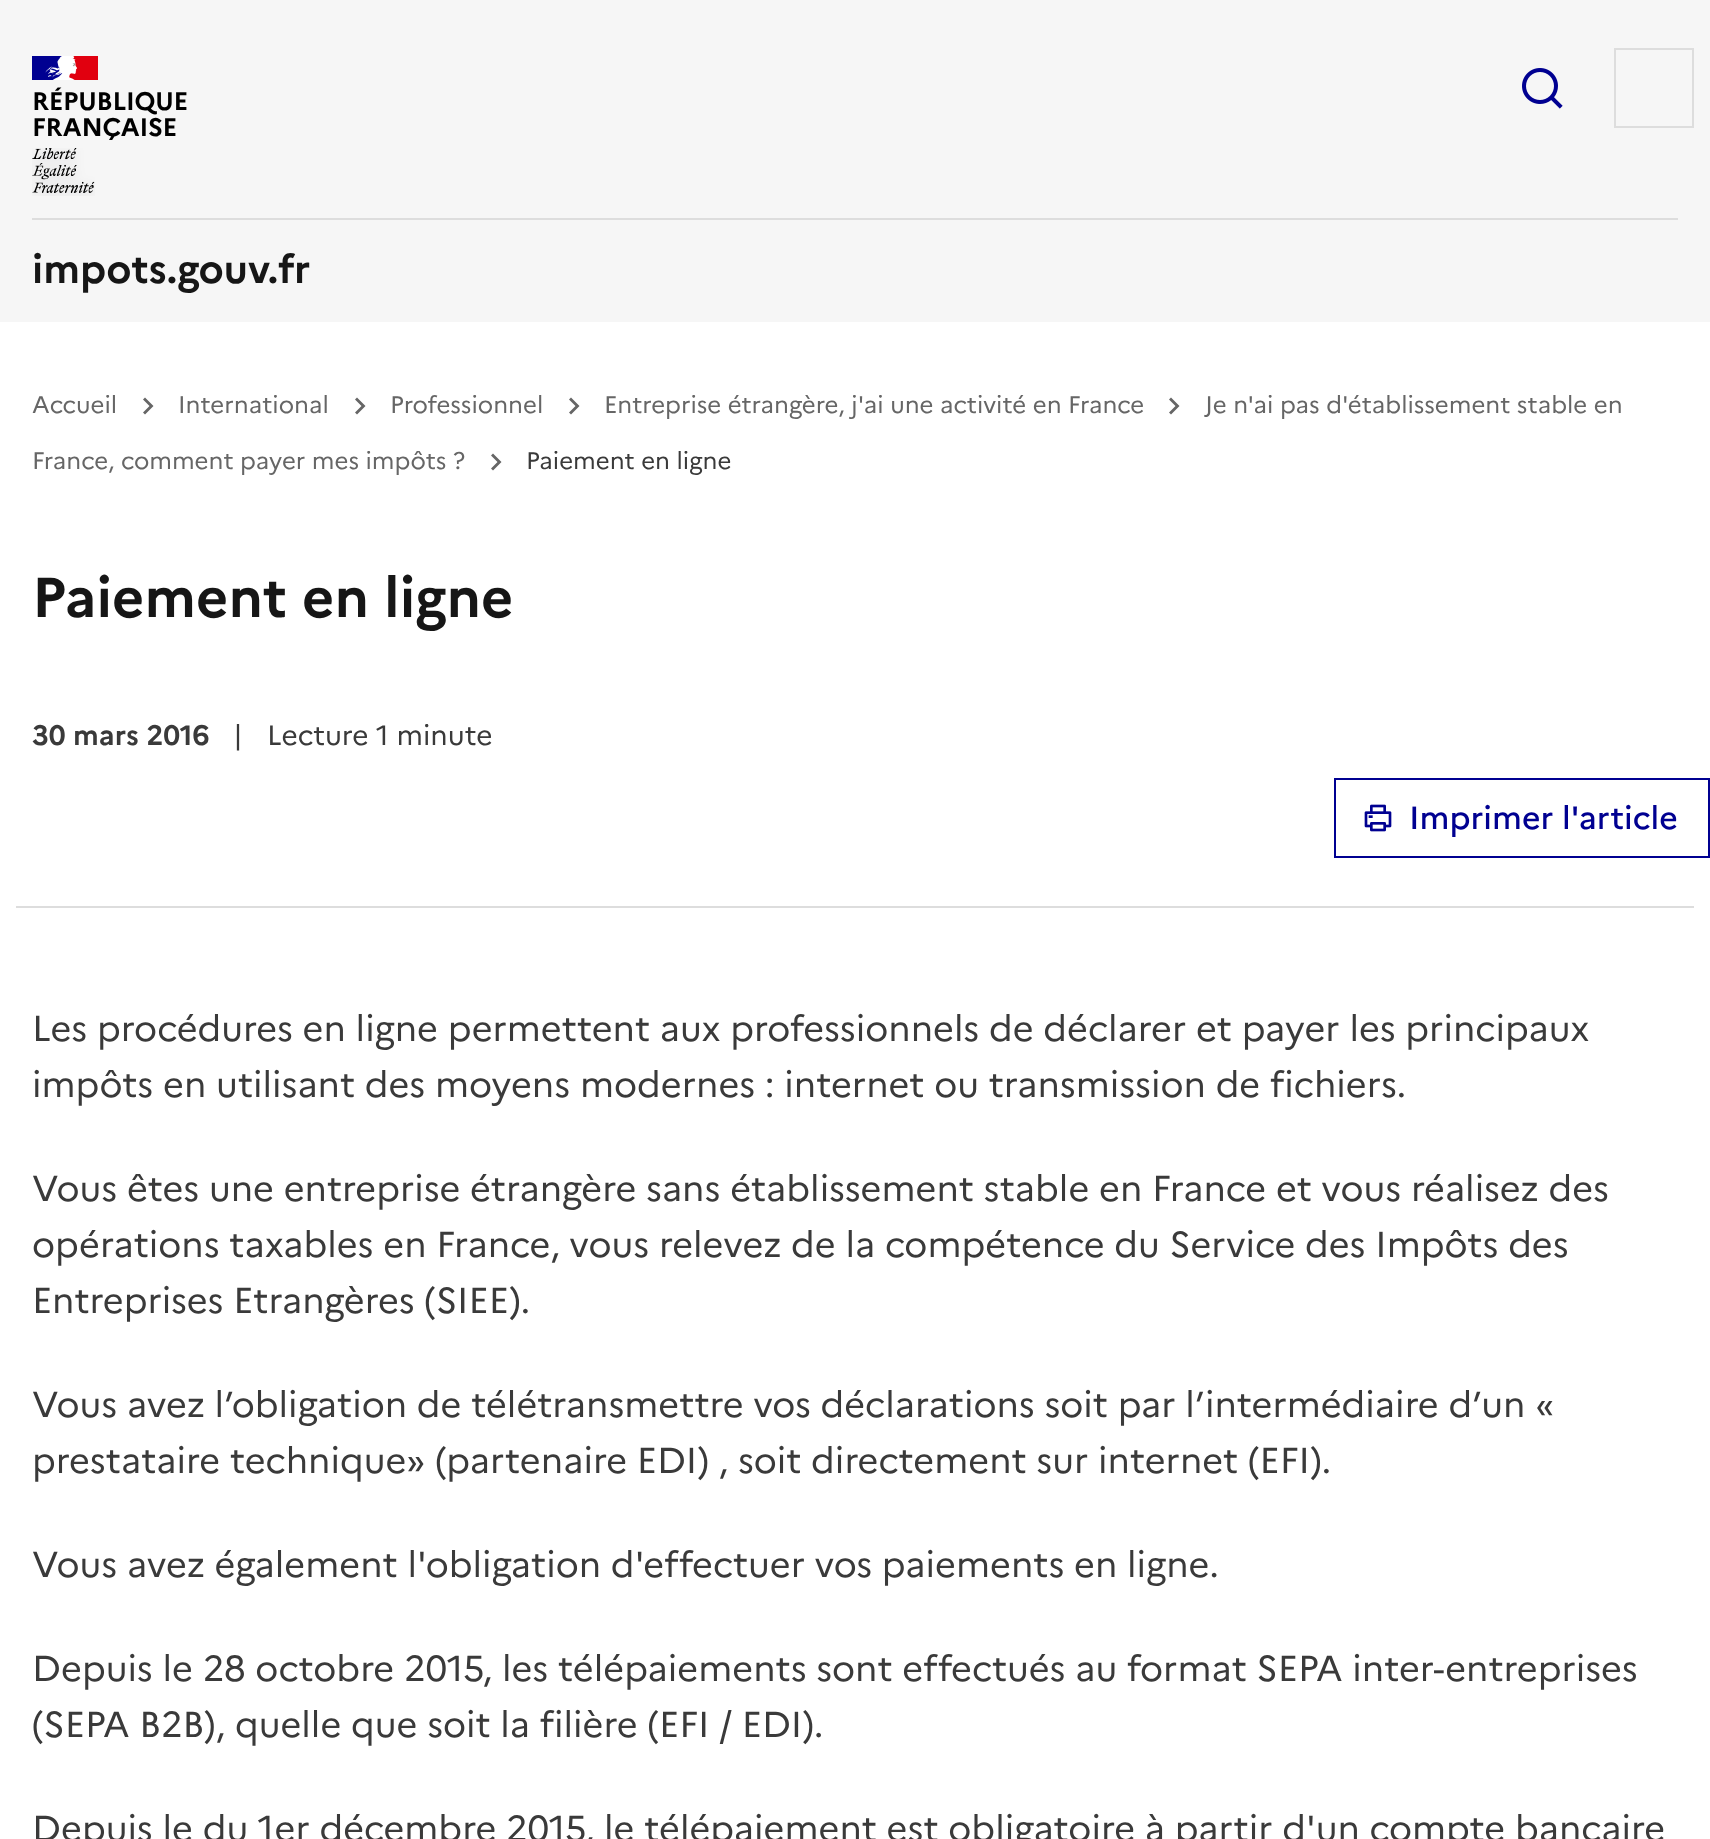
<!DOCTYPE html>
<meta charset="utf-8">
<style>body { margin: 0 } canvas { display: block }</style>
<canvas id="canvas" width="1710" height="1839"></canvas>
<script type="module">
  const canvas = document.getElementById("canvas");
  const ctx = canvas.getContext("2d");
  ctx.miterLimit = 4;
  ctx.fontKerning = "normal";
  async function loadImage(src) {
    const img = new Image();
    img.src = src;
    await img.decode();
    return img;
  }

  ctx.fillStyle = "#ffffff";
  ctx.fillRect(0, 0, 1710, 1839);
  ctx.fillStyle = "#f6f6f6";
  ctx.fillRect(0, 0, 1710, 322);
  ctx.fillStyle = "#000091";
  ctx.fillRect(32, 56, 31, 24);
  ctx.fillStyle = "#e1000f";
  ctx.fillRect(69, 56, 29, 24);
  ctx.drawImage(await loadImage("img1.png"), 45, 56, 32, 24);
  ctx.letterSpacing = "-0.25px";
  ctx.font = "bold 25.25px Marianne";
  ctx.fillStyle = "#000000";
  ctx.fillText("RÉPUBLIQUE", 32, 110);
  ctx.fillText("FRANÇAISE", 32, 136);
  ctx.drawImage(await loadImage("img2.png"), 32, 148, 63, 48);
  ctx.drawImage(await loadImage("img3.png"), 1522, 68, 41, 41);
  ctx.strokeStyle = "#dddddd";
  ctx.lineWidth = 2;
  ctx.strokeRect(1615, 49, 78, 78);
  ctx.fillStyle = "#dddddd";
  ctx.fillRect(32, 218, 1646, 2);
  ctx.letterSpacing = "0px";
  ctx.font = "bold 40px Marianne";
  ctx.fillStyle = "#161616";
  ctx.fillText("impots.gouv.fr", 32, 283);
  ctx.font = "24px Marianne";
  ctx.fillStyle = "#666666";
  ctx.fillText("Accueil", 32, 413);
  ctx.beginPath();
  ctx.moveTo(1175.5, 406);
  ctx.lineTo(1169, 399.5);
  ctx.lineTo(1171, 397.5);
  ctx.lineTo(1179.5, 406);
  ctx.lineTo(1171, 414.5);
  ctx.lineTo(1169, 412.5);
  ctx.closePath();
  ctx.fill();
  ctx.fillText("Je n'ai pas d'établissement stable en", 1205, 413);
  ctx.fillText("France, comment payer mes impôts ?", 32, 469);
  ctx.beginPath();
  ctx.moveTo(149.5, 406);
  ctx.lineTo(143, 399.5);
  ctx.lineTo(145, 397.5);
  ctx.lineTo(153.5, 406);
  ctx.lineTo(145, 414.5);
  ctx.lineTo(143, 412.5);
  ctx.closePath();
  ctx.fill();
  ctx.fillText("International", 178, 413);
  ctx.beginPath();
  ctx.moveTo(361.5, 406);
  ctx.lineTo(355, 399.5);
  ctx.lineTo(357, 397.5);
  ctx.lineTo(365.5, 406);
  ctx.lineTo(357, 414.5);
  ctx.lineTo(355, 412.5);
  ctx.closePath();
  ctx.fill();
  ctx.fillText("Professionnel", 390, 413);
  ctx.beginPath();
  ctx.moveTo(575.5, 406);
  ctx.lineTo(569, 399.5);
  ctx.lineTo(571, 397.5);
  ctx.lineTo(579.5, 406);
  ctx.lineTo(571, 414.5);
  ctx.lineTo(569, 412.5);
  ctx.closePath();
  ctx.fill();
  ctx.fillText("Entreprise étrangère, j'ai une activité en France", 604, 413);
  ctx.beginPath();
  ctx.moveTo(497.5, 462);
  ctx.lineTo(491, 455.5);
  ctx.lineTo(493, 453.5);
  ctx.lineTo(501.5, 462);
  ctx.lineTo(493, 470.5);
  ctx.lineTo(491, 468.5);
  ctx.closePath();
  ctx.fill();
  ctx.fillStyle = "#3a3a3a";
  ctx.fillText("Paiement en ligne", 526, 469);
  ctx.font = "bold 56px Marianne";
  ctx.fillStyle = "#161616";
  ctx.fillText("Paiement en ligne", 32, 617);
  ctx.font = "bold 28px Marianne";
  ctx.fillStyle = "#3a3a3a";
  ctx.fillText("30 mars 2016", 32, 745);
  ctx.font = "28px Marianne";
  ctx.fillText("|", 233, 745);
  ctx.fillText("Lecture 1 minute", 267, 745);
  ctx.strokeStyle = "#000091";
  ctx.strokeRect(1335, 779, 374, 78);
  ctx.drawImage(await loadImage("img4.png"), 1364, 804, 28, 28);
  ctx.font = "500 32px Marianne";
  ctx.fillStyle = "#000091";
  ctx.fillText("Imprimer l'article", 1409, 829);
  ctx.fillStyle = "#dddddd";
  ctx.fillRect(16, 906, 1678, 2);
  ctx.font = "36px Marianne";
  ctx.fillStyle = "#3a3a3a";
  ctx.fillText("Les procédures en ligne permettent aux professionnels de déclarer et payer les principaux", 32, 1041);
  ctx.fillText("impôts en utilisant des moyens modernes : internet ou transmission de fichiers.", 32, 1097);
  ctx.fillText("Vous êtes une entreprise étrangère sans établissement stable en France et vous réalisez des", 32, 1201);
  ctx.fillText("opérations taxables en France, vous relevez de la compétence du Service des Impôts des", 32, 1257);
  ctx.fillText("Entreprises Etrangères (SIEE).", 32, 1313);
  ctx.fillText("Vous avez l’obligation de télétransmettre vos déclarations soit par l’intermédiaire d’un «", 32, 1417);
  ctx.fillText("prestataire technique» (partenaire EDI) , soit directement sur internet (EFI).", 32, 1473);
  ctx.fillText("Vous avez également l'obligation d'effectuer vos paiements en ligne.", 32, 1577);
  ctx.fillText("Depuis le 28 octobre 2015, les télépaiements sont effectués au format SEPA inter-entreprises", 32, 1681);
  ctx.fillText("(SEPA B2B), quelle que soit la filière (EFI / EDI).", 32, 1737);
  ctx.fillText("Depuis le du 1er décembre 2015, le télépaiement est obligatoire à partir d'un compte bancaire", 32, 1841);
</script>
